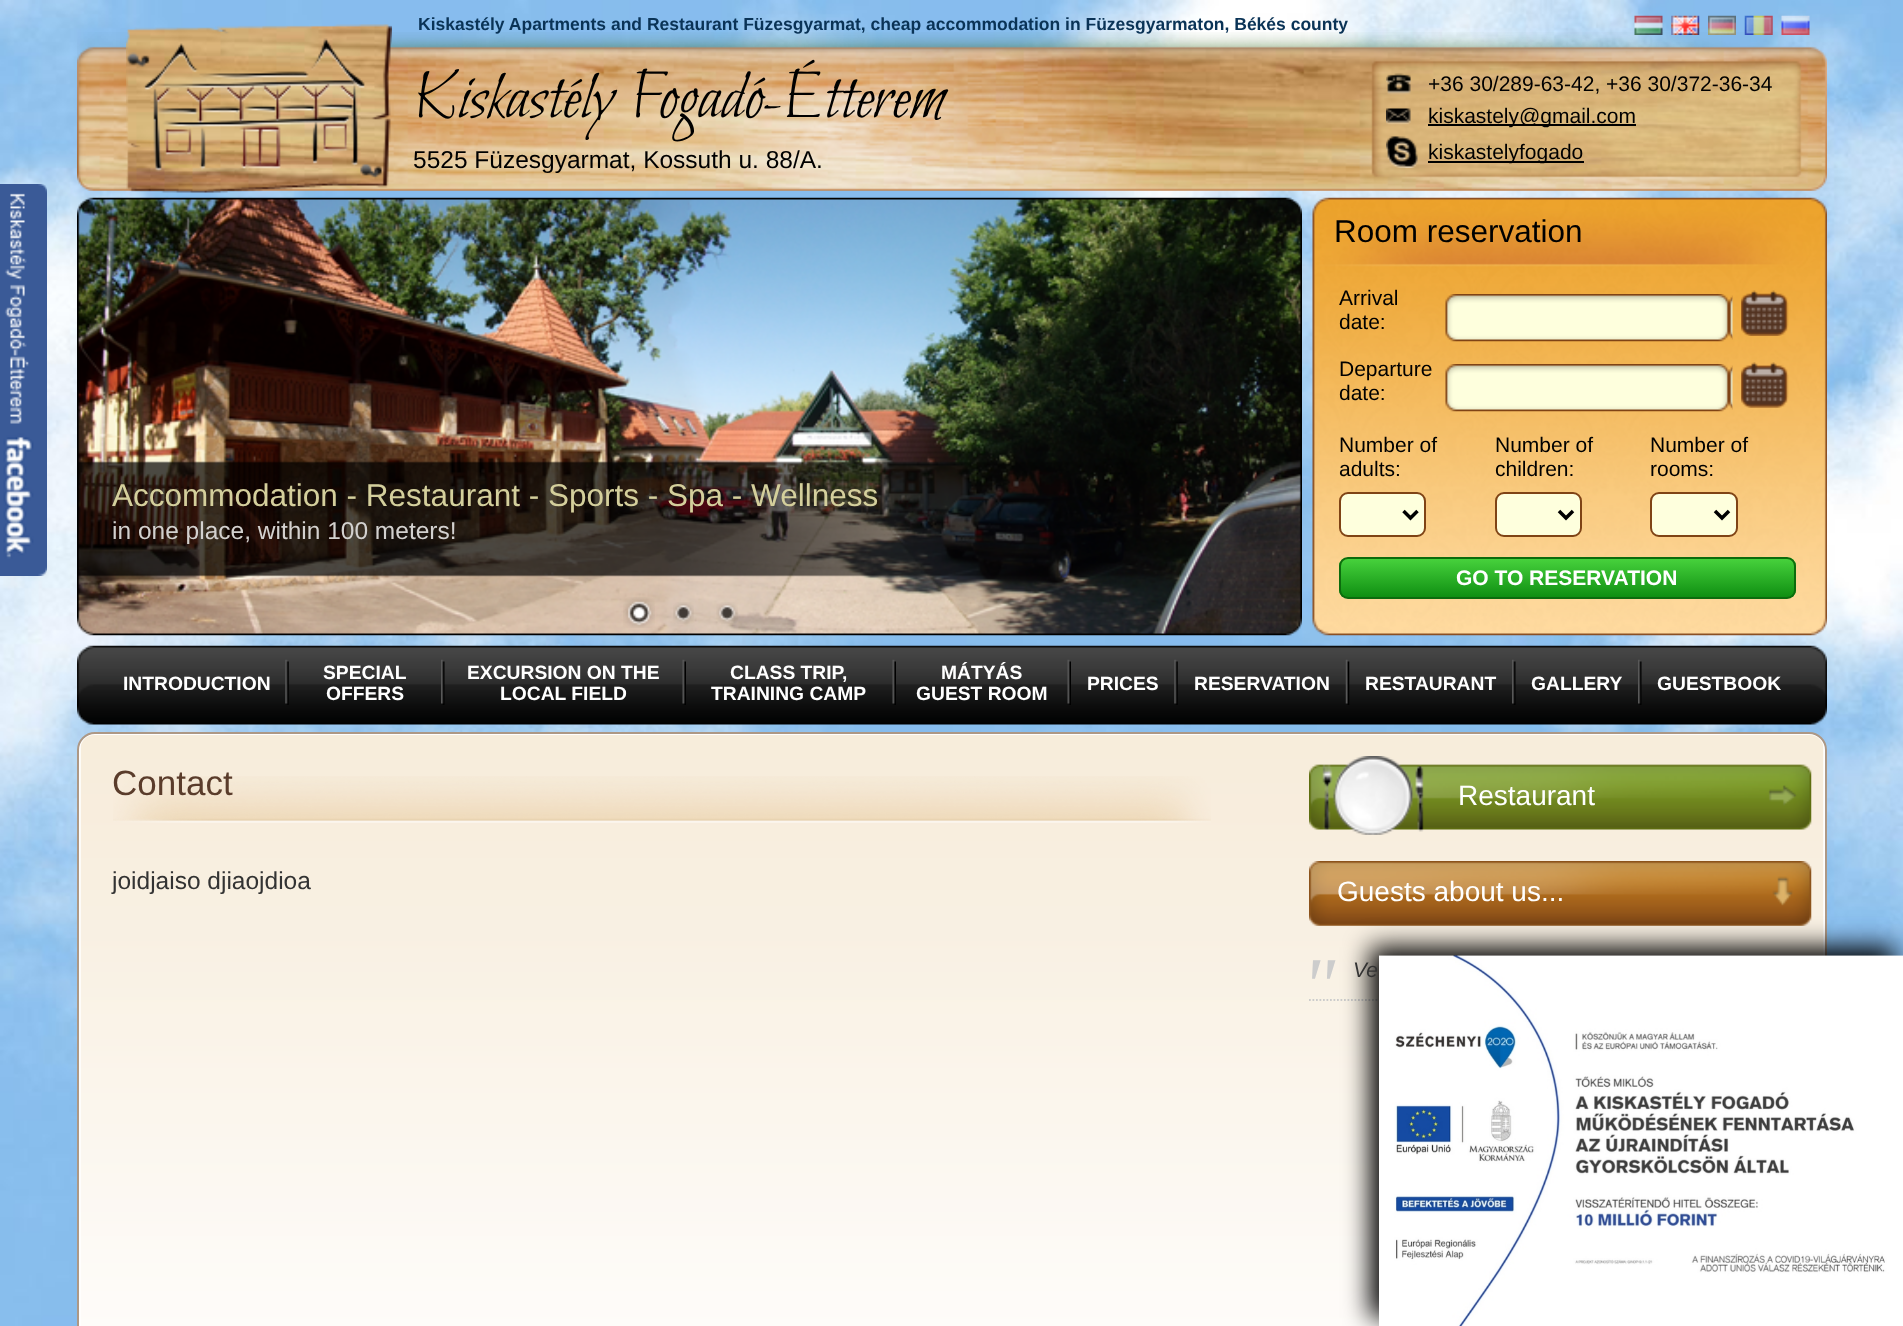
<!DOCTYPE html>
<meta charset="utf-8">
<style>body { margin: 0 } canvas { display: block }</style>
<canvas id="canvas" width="1903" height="1326"></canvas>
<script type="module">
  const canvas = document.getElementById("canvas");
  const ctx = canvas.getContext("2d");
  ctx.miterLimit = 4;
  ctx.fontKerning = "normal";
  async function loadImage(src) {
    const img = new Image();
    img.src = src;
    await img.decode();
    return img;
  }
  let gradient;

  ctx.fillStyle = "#ffffff";
  ctx.fillRect(0, 0, 1903, 1326);
  ctx.drawImage(await loadImage("img1.png"), 0, 0, 1903, 1326);
  ctx.drawImage(await loadImage("img2.png"), 0, 184, 47, 392);
  ctx.drawImage(await loadImage("img3.png"), 77, 32, 1750, 159);
  ctx.drawImage(await loadImage("img4.png"), 126, 24, 266, 169);
  ctx.font = "bold 17.5px Liberation Sans";
  ctx.fillStyle = "#0a3356";
  ctx.fillText("Kiskastély Apartments and Restaurant Füzesgyarmat, cheap accommodation in Füzesgyarmaton, Békés county", 418, 30);
  ctx.drawImage(await loadImage("img5.png"), 1634, 15, 29, 20);
  ctx.drawImage(await loadImage("img6.png"), 1671, 15, 29, 20);
  ctx.drawImage(await loadImage("img7.png"), 1708, 15, 28, 20);
  ctx.drawImage(await loadImage("img8.png"), 1744, 15, 29, 20);
  ctx.drawImage(await loadImage("img9.png"), 1781, 15, 29, 20);
  ctx.font = "70px Bilbo";
  ctx.fillStyle = "#000000";
  ctx.fillText("Kiskastély Fogadó-Étterem", 413, 117);
  ctx.font = "24.5px Liberation Sans";
  ctx.fillText("5525 Füzesgyarmat, Kossuth u. 88/A.", 413, 168);
  ctx.drawImage(await loadImage("img10.png"), 1386, 73, 25, 22);
  ctx.font = "21px Liberation Sans";
  ctx.fillText("+36 30/289-63-42, +36 30/372-36-34", 1428, 91);
  ctx.drawImage(await loadImage("img11.png"), 1386, 108, 25, 17);
  ctx.fillRect(1428, 124, 208, 2);
  ctx.fillText("kiskastely@gmail.com", 1428, 123);
  ctx.drawImage(await loadImage("img12.png"), 1386, 136, 32, 32);
  ctx.fillRect(1428, 161, 156, 2);
  ctx.fillText("kiskastelyfogado", 1428, 159);
  ctx.drawImage(await loadImage("img13.png"), 77, 197, 1225, 439);
  ctx.font = "31.5px Liberation Sans";
  ctx.fillStyle = "#d4cf9c";
  ctx.fillText("Accommodation - Restaurant - Sports - Spa - Wellness", 112, 506);
  ctx.font = "24.5px Liberation Sans";
  ctx.fillStyle = "#d3d1cf";
  ctx.fillText("in one place, within 100 meters!", 112, 539);
  ctx.drawImage(await loadImage("img14.png"), 623, 597, 32, 31);
  ctx.drawImage(await loadImage("img15.png"), 673, 602, 21, 22);
  ctx.drawImage(await loadImage("img16.png"), 716, 602, 22, 22);
  ctx.drawImage(await loadImage("img17.png"), 1312, 197, 515, 439);
  ctx.font = "31.5px Liberation Sans";
  ctx.fillStyle = "#000000";
  ctx.fillText("Room reservation", 1334, 242);
  ctx.font = "21px Liberation Sans";
  ctx.fillText("Arrival", 1339, 305);
  ctx.fillText("date:", 1339, 329);
  ctx.drawImage(await loadImage("img18.png"), 1445, 294, 288, 48);
  ctx.drawImage(await loadImage("img19.png"), 1741, 290, 48, 46);
  ctx.fillText("Departure", 1339, 376);
  ctx.fillText("date:", 1339, 400);
  ctx.drawImage(await loadImage("img20.png"), 1445, 364, 288, 48);
  ctx.drawImage(await loadImage("img21.png"), 1741, 362, 48, 46);
  ctx.fillText("Number of", 1339, 452);
  ctx.fillText("adults:", 1339, 476);
  ctx.fillText("Number of", 1495, 452);
  ctx.fillText("children:", 1495, 476);
  ctx.fillText("Number of", 1650, 452);
  ctx.fillText("rooms:", 1650, 476);
  ctx.fillStyle = "#feffdd";
  ctx.beginPath();
  ctx.roundRect(1340, 493, 85, 43, 8);
  ctx.fill();
  ctx.strokeStyle = "#7f4315";
  ctx.lineWidth = 2;
  ctx.stroke();
  ctx.beginPath();
  ctx.moveTo(1403.5, 511);
  ctx.lineTo(1410.5, 518);
  ctx.lineTo(1417.5, 511);
  ctx.strokeStyle = "#000000";
  ctx.lineWidth = 3.5;
  ctx.stroke();
  ctx.beginPath();
  ctx.roundRect(1496, 493, 85, 43, 8);
  ctx.fill();
  ctx.strokeStyle = "#7f4315";
  ctx.lineWidth = 2;
  ctx.stroke();
  ctx.beginPath();
  ctx.moveTo(1559, 511);
  ctx.lineTo(1566, 518);
  ctx.lineTo(1573, 511);
  ctx.strokeStyle = "#000000";
  ctx.lineWidth = 3.5;
  ctx.stroke();
  ctx.beginPath();
  ctx.roundRect(1651, 493, 86, 43, 8);
  ctx.fill();
  ctx.strokeStyle = "#7f4315";
  ctx.lineWidth = 2;
  ctx.stroke();
  ctx.beginPath();
  ctx.moveTo(1715, 511);
  ctx.lineTo(1722, 518);
  ctx.lineTo(1729, 511);
  ctx.strokeStyle = "#000000";
  ctx.lineWidth = 3.5;
  ctx.stroke();
  ctx.save();
  ctx.beginPath();
  ctx.roundRect(1339, 557, 457, 42, 9);
  ctx.clip();
  gradient = ctx.createLinearGradient(1567, 558, 1567, 597);
  gradient.addColorStop(0, "#48d33d");
  gradient.addColorStop(1, "#0f8f12");
  ctx.fillStyle = gradient;
  ctx.fillRect(1339, 558, 457, 39);
  ctx.restore();
  ctx.beginPath();
  ctx.roundRect(1340, 558, 455, 40, 8);
  ctx.strokeStyle = "#0c6c0d";
  ctx.lineWidth = 2;
  ctx.stroke();
  ctx.font = "bold 21px Liberation Sans";
  ctx.fillStyle = "#ffffff";
  ctx.fillText("GO TO RESERVATION", 1456, 585);
  ctx.drawImage(await loadImage("img22.png"), 77, 645, 1750, 80);
  ctx.font = "bold 19.25px Liberation Sans";
  ctx.fillText("INTRODUCTION", 123, 690);
  ctx.drawImage(await loadImage("img23.png"), 285, 659, 4, 46);
  ctx.fillText("SPECIAL", 323, 679);
  ctx.fillText("OFFERS", 326, 700);
  ctx.drawImage(await loadImage("img24.png"), 441, 659, 4, 46);
  ctx.fillText("EXCURSION ON THE", 467, 679);
  ctx.fillText("LOCAL FIELD", 500, 700);
  ctx.drawImage(await loadImage("img25.png"), 682, 659, 4, 46);
  ctx.fillText("CLASS TRIP,", 730, 679);
  ctx.fillText("TRAINING CAMP", 711, 700);
  ctx.drawImage(await loadImage("img25.png"), 892, 659, 4, 46);
  ctx.fillText("MÁTYÁS", 941, 679);
  ctx.fillText("GUEST ROOM", 916, 700);
  ctx.drawImage(await loadImage("img25.png"), 1067, 659, 4, 46);
  ctx.fillText("PRICES", 1087, 690);
  ctx.drawImage(await loadImage("img23.png"), 1174, 659, 4, 46);
  ctx.fillText("RESERVATION", 1194, 690);
  ctx.drawImage(await loadImage("img26.png"), 1345, 659, 5, 46);
  ctx.fillText("RESTAURANT", 1365, 690);
  ctx.drawImage(await loadImage("img24.png"), 1512, 659, 4, 46);
  ctx.fillText("GALLERY", 1531, 690);
  ctx.drawImage(await loadImage("img24.png"), 1638, 659, 4, 46);
  ctx.fillText("GUESTBOOK", 1657, 690);
  ctx.beginPath();
  ctx.roundRect(78, 733, 1748, 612, 17);
  ctx.fill();
  ctx.strokeStyle = "#ad9885";
  ctx.stroke();
  ctx.drawImage(await loadImage("img27.png"), 80, 735, 1744, 591);
  ctx.drawImage(await loadImage("img28.png"), 113, 776, 1098, 47);
  ctx.font = "35px Liberation Sans";
  ctx.fillStyle = "#5a3c2b";
  ctx.fillText("Contact", 112, 795);
  ctx.font = "24.5px Liberation Sans";
  ctx.fillStyle = "#333333";
  ctx.fillText("joidjaiso djiaojdioa", 112, 889);
  ctx.drawImage(await loadImage("img29.png"), 1309, 756, 503, 79);
  ctx.font = "28px Liberation Sans";
  ctx.fillStyle = "#ffffff";
  ctx.fillText("Restaurant", 1458, 805);
  ctx.drawImage(await loadImage("img30.png"), 1309, 861, 503, 65);
  ctx.fillText("Guests about us...", 1337, 901);
  ctx.beginPath();
  ctx.moveTo(1309, 1000);
  ctx.lineTo(1811, 1000);
  ctx.strokeStyle = "#cccccc";
  ctx.lineWidth = 1.8;
  ctx.setLineDash([1.75, 1.75]);
  ctx.stroke();
  ctx.fillStyle = "#000000";
  ctx.filter = "blur(13px)";
  ctx.beginPath();
  ctx.rect(1370, 947, 525, 371);
  ctx.fill();
  ctx.filter = "none";
  ctx.drawImage(await loadImage("img31.png"), 1379, 955, 524, 371);
  ctx.font = "italic 79px Liberation Serif";
  ctx.fillStyle = "#cccccc";
  ctx.fillText("\"", 1302, 1012);
  ctx.font = "italic 21px Liberation Sans";
  ctx.fillStyle = "#333333";
  ctx.fillText("Ve", 1353, 977);
</script>
